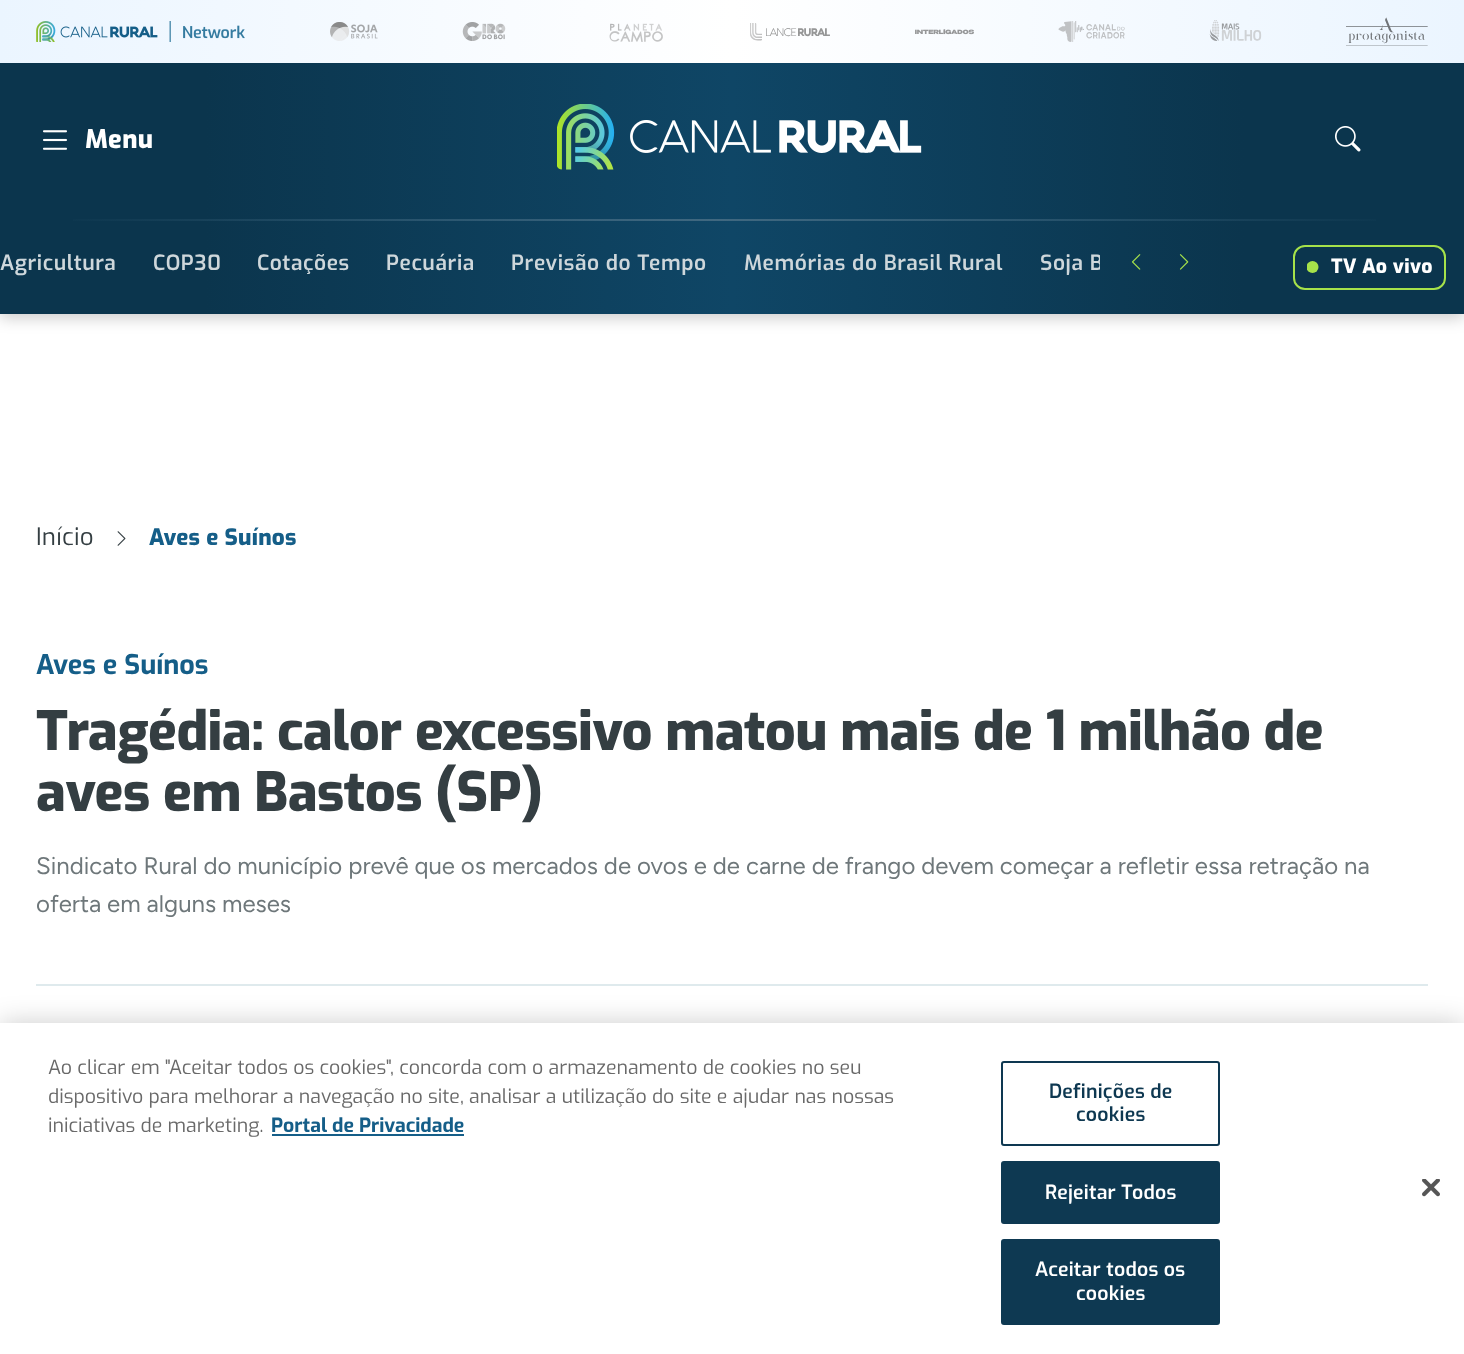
<!DOCTYPE html>
<meta charset="utf-8">
<style>body { margin: 0 } canvas { display: block }</style>
<canvas id="canvas" width="1464" height="1354"></canvas>
<script type="module">
  const canvas = document.getElementById("canvas");
  const ctx = canvas.getContext("2d");
  ctx.miterLimit = 4;
  ctx.fontKerning = "normal";
  async function loadImage(src) {
    const img = new Image();
    img.src = src;
    await img.decode();
    return img;
  }
  let gradient;

  ctx.fillStyle = "#ffffff";
  ctx.fillRect(0, 0, 1464, 1354);
  ctx.fillStyle = "rgba(0, 0, 0, 0.2)";
  ctx.filter = "blur(7.5px)";
  ctx.beginPath();
  ctx.rect(0, 5, 1464, 313);
  ctx.fill();
  ctx.filter = "none";
  gradient = ctx.createLinearGradient(1464, 157, 0, 157);
  gradient.addColorStop(0.15, "#0b354d");
  gradient.addColorStop(0.5, "#0f4666");
  gradient.addColorStop(0.86, "#0b354d");
  ctx.fillStyle = gradient;
  ctx.fillRect(0, 63, 1464, 251);
  gradient = ctx.createLinearGradient(0, 32, 1464, 31);
  gradient.addColorStop(0, "#ebf5ff");
  gradient.addColorStop(0.5, "#ffffff");
  gradient.addColorStop(1, "#ebf5ff");
  ctx.fillStyle = gradient;
  ctx.fillRect(0, 0, 1464, 63);
  ctx.drawImage(await loadImage("img1.png"), 36, 21, 209, 21);
  ctx.drawImage(await loadImage("img2.png"), 330, 22, 48, 19);
  ctx.drawImage(await loadImage("img3.png"), 462, 22, 44, 19);
  ctx.drawImage(await loadImage("img4.png"), 609, 23, 54, 19);
  ctx.drawImage(await loadImage("img5.png"), 750, 23, 80, 18);
  ctx.drawImage(await loadImage("img6.png"), 915, 29, 59, 6);
  ctx.drawImage(await loadImage("img7.png"), 1058, 21, 67, 21);
  ctx.drawImage(await loadImage("img8.png"), 1209, 20, 53, 21);
  ctx.drawImage(await loadImage("img9.png"), 1346, 17, 82, 29);
  ctx.drawImage(await loadImage("img10.png"), 43, 130, 24, 20);
  ctx.letterSpacing = "0.4px";
  ctx.font = "800 25.5px Exo";
  ctx.fillStyle = "#ffffff";
  ctx.fillText("Menu", 85, 148);
  ctx.drawImage(await loadImage("img11.png"), 557, 104, 365, 66);
  ctx.drawImage(await loadImage("img12.png"), 1335, 126, 26, 26);
  gradient = ctx.createLinearGradient(1464, 207, 0.2, 233);
  gradient.addColorStop(0.04, "rgba(64, 104, 128, 0)");
  gradient.addColorStop(0.51, "#406880");
  gradient.addColorStop(0.97, "rgba(64, 104, 128, 0)");
  ctx.fillStyle = gradient;
  ctx.fillRect(73, 219, 1303, 2);
  ctx.letterSpacing = "0.6px";
  ctx.font = "600 21px Exo";
  ctx.fillStyle = "#ced7db";
  ctx.fillText("Agricultura", 0, 270);
  ctx.fillText("COP30", 153, 270);
  ctx.fillText("Cotações", 257, 270);
  ctx.fillText("Pecuária", 386, 270);
  ctx.fillText("Previsão do Tempo", 511, 270);
  ctx.fillText("Memórias do Brasil Rural", 744, 270);
  ctx.save();
  ctx.beginPath();
  ctx.rect(0, 245, 1100, 45);
  ctx.clip();
  ctx.fillText("Soja B", 1040, 270);
  ctx.restore();
  ctx.drawImage(await loadImage("img13.png"), 1131, 254, 10, 16);
  ctx.drawImage(await loadImage("img14.png"), 1179, 254, 10, 16);
  ctx.beginPath();
  ctx.roundRect(1294, 246, 151, 43, 11);
  ctx.strokeStyle = "#a6e24a";
  ctx.lineWidth = 2;
  ctx.stroke();
  ctx.save();
  ctx.beginPath();
  ctx.rect(1307, 261, 12, 12);
  ctx.clip();
  ctx.fillStyle = "#a6e24a";
  ctx.beginPath();
  ctx.arc(1312.5, 267, 6, 0, Math.PI * 2);
  ctx.fill();
  ctx.restore();
  ctx.letterSpacing = "0.4px";
  ctx.font = "800 19.5px Exo";
  ctx.fillStyle = "#ffffff";
  ctx.fillText("TV Ao vivo", 1331, 273);
  ctx.letterSpacing = "0.25px";
  ctx.font = "24px Exo";
  ctx.fillStyle = "#343e42";
  ctx.fillText("Início", 36, 545);
  ctx.drawImage(await loadImage("img15.png"), 117, 531, 9, 15);
  ctx.font = "800 22.5px Exo";
  ctx.fillStyle = "#155e88";
  ctx.fillText("Aves e Suínos", 149, 545);
  ctx.fillStyle = "#dfeaed";
  ctx.fillRect(36, 984, 1392, 2);
  ctx.letterSpacing = "0px";
  ctx.font = "bold 27px Exo";
  ctx.fillStyle = "#155e88";
  ctx.fillText("Aves e Suínos", 36, 674);
  ctx.letterSpacing = "-0.55px";
  ctx.font = "800 54px Exo";
  ctx.fillStyle = "#343e42";
  ctx.fillText("Tragédia: calor excessivo matou mais de 1 milhão de", 36, 750);
  ctx.fillText("aves em Bastos (SP)", 36, 811);
  ctx.letterSpacing = "0px";
  ctx.font = "300 24px Figtree";
  ctx.fillStyle = "#6e777a";
  ctx.fillText("Sindicato Rural do município prevê que os mercados de ovos e de carne de frango devem começar a refletir essa retração na", 36, 874);
  ctx.fillText("oferta em alguns meses", 36, 912);
  ctx.fillStyle = "rgba(0, 0, 0, 0.2)";
  ctx.filter = "blur(13.5px)";
  ctx.beginPath();
  ctx.rect(0, 1023, 1464, 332);
  ctx.fill();
  ctx.filter = "none";
  ctx.fillStyle = "#ffffff";
  ctx.fillRect(0, 1023, 1464, 331);
  ctx.font = "19.5px Exo";
  ctx.fillStyle = "#696969";
  ctx.fillText("Ao clicar em \"Aceitar todos os cookies\", concorda com o armazenamento de cookies no seu", 48, 1074);
  ctx.fillText("dispositivo para melhorar a navegação no site, analisar a utilização do site e ajudar nas nossas", 48, 1103);
  ctx.fillText("iniciativas de marketing.", 48, 1132);
  ctx.font = "bold 19.5px Exo";
  ctx.fillStyle = "#155e88";
  ctx.fillText("Portal de Privacidade", 271, 1132);
  ctx.fillRect(272, 1134, 192, 2);
  ctx.beginPath();
  ctx.roundRect(1002, 1062, 217, 83, 2);
  ctx.strokeStyle = "#0e3851";
  ctx.stroke();
  ctx.letterSpacing = "0.25px";
  ctx.font = "600 19.5px Exo";
  ctx.fillStyle = "#0e3851";
  ctx.fillText("Definições de", 1049, 1098);
  ctx.fillText("cookies", 1076, 1121);
  ctx.fillStyle = "#0e3952";
  ctx.beginPath();
  ctx.roundRect(1002, 1162, 217, 61, 2);
  ctx.fill();
  ctx.strokeStyle = "#0e3952";
  ctx.stroke();
  ctx.fillStyle = "#ffffff";
  ctx.fillText("Rejeitar Todos", 1045, 1199);
  ctx.fillStyle = "#0e3952";
  ctx.beginPath();
  ctx.roundRect(1002, 1240, 217, 84, 2);
  ctx.fill();
  ctx.stroke();
  ctx.fillStyle = "#ffffff";
  ctx.fillText("Aceitar todos os", 1035, 1276);
  ctx.fillText("cookies", 1076, 1300);
  ctx.drawImage(await loadImage("img16.png"), 1422, 1179, 18, 18);
</script>
